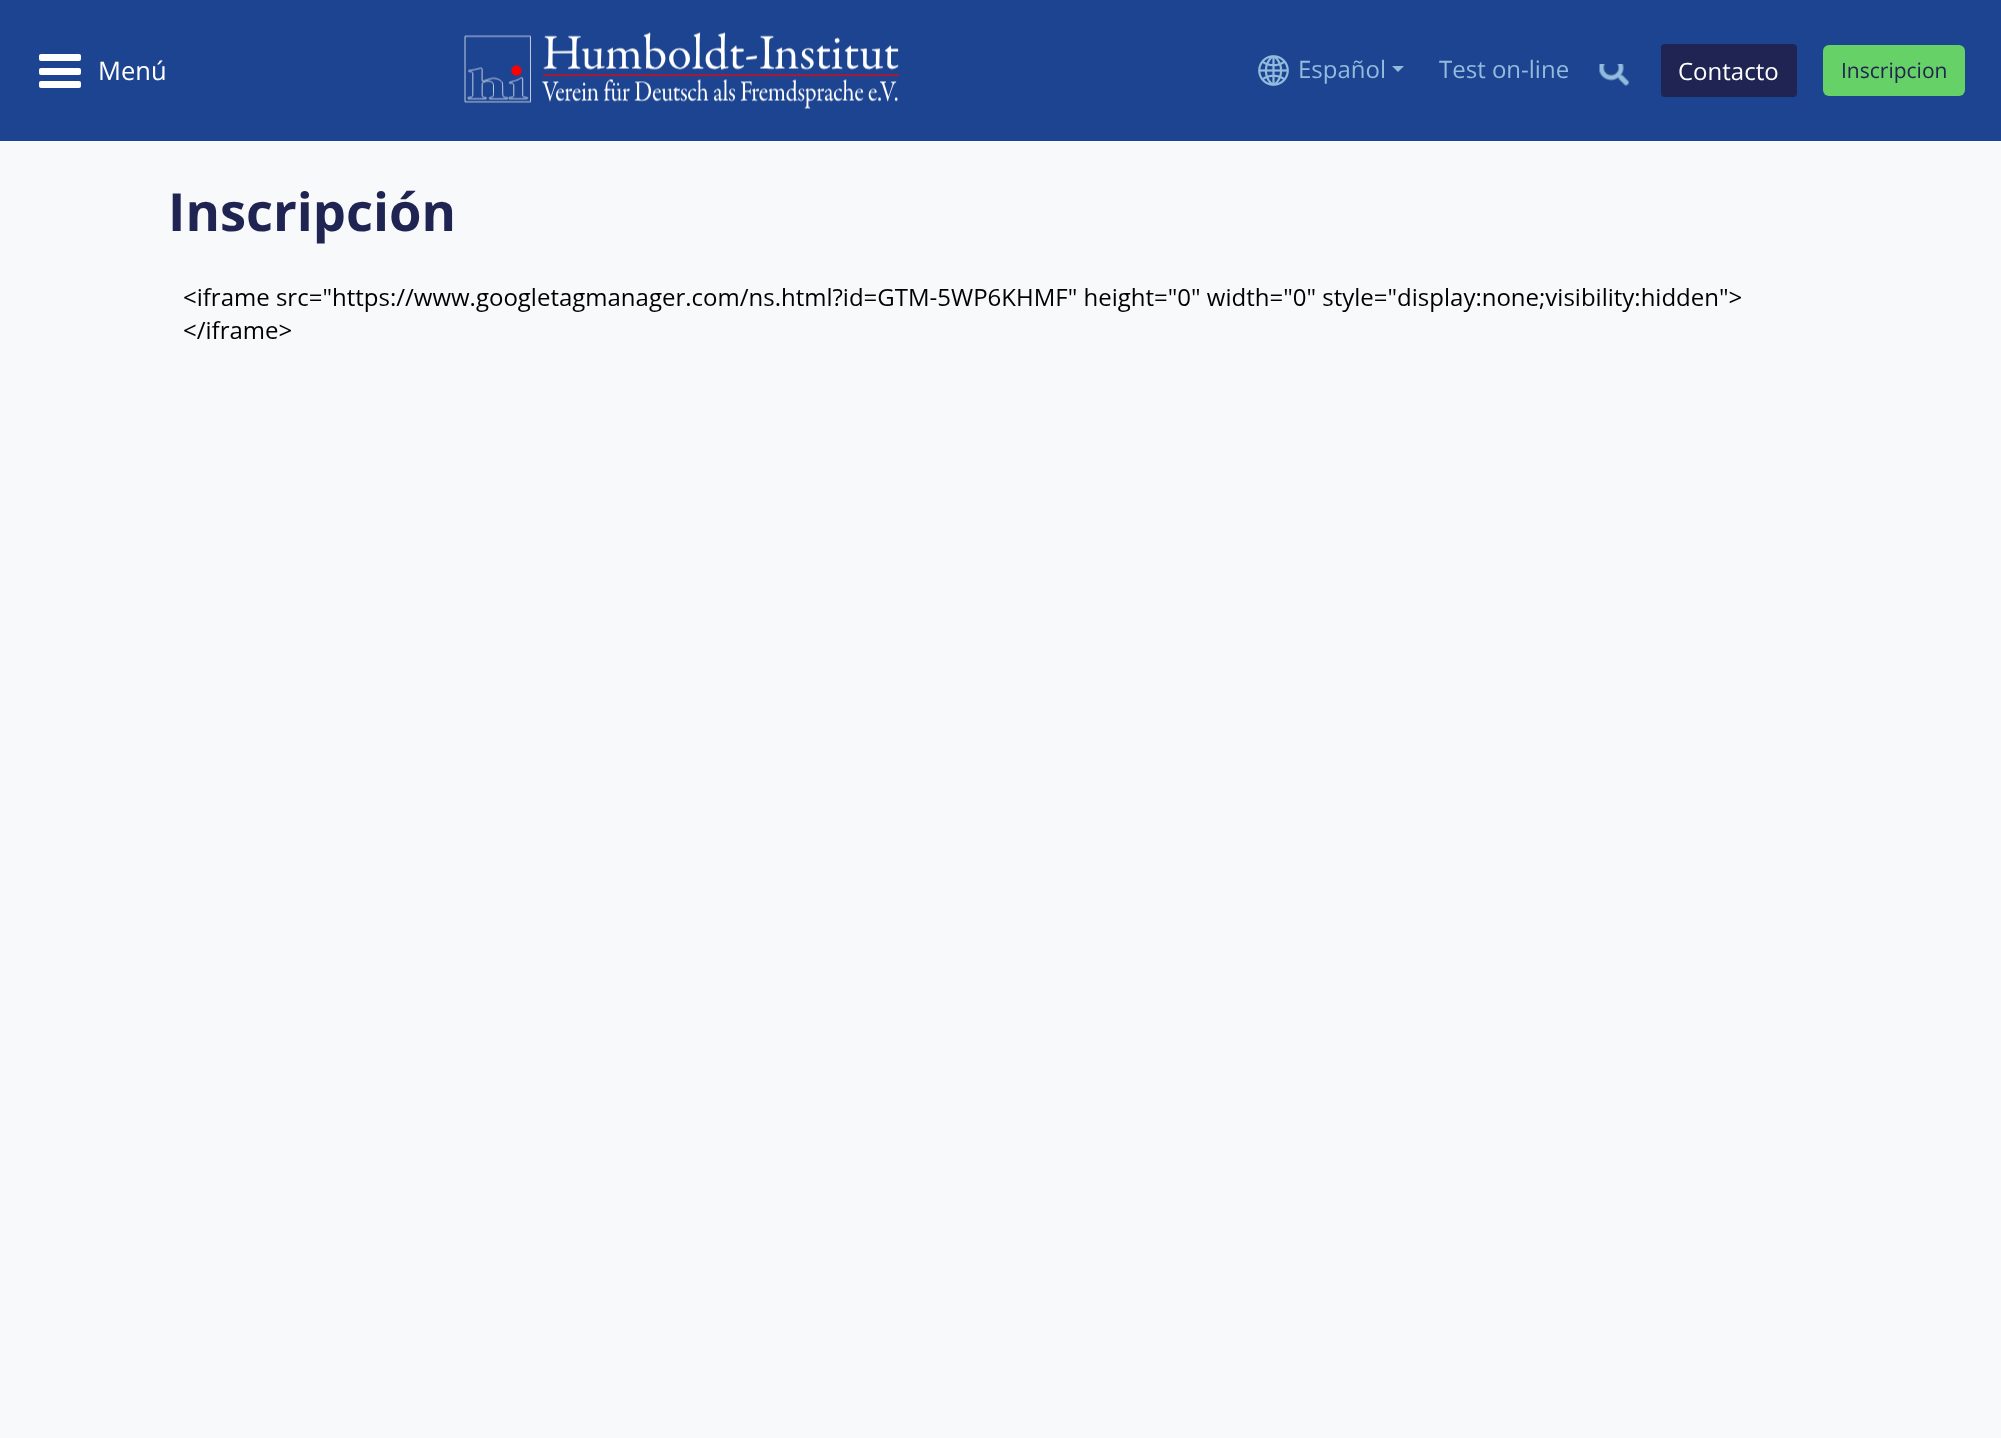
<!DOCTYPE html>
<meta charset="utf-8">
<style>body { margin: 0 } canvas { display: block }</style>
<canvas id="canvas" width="2001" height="1438"></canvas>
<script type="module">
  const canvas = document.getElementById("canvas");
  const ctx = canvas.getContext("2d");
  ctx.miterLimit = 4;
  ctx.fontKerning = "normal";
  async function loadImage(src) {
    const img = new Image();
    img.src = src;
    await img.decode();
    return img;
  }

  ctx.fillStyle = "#f8f9fa";
  ctx.fillRect(0, 0, 2001, 1438);
  ctx.fillStyle = "#1c4491";
  ctx.fillRect(0, 0, 2001, 141);
  ctx.fillStyle = "#ffffff";
  ctx.beginPath();
  ctx.roundRect(39, 54, 42, 7, 2);
  ctx.fill();
  ctx.beginPath();
  ctx.roundRect(39, 68, 42, 7, 2);
  ctx.fill();
  ctx.beginPath();
  ctx.roundRect(39, 81, 42, 7, 2);
  ctx.fill();
  ctx.font = "25.5px Open Sans";
  ctx.fillText("Menú", 98, 80);
  ctx.drawImage(await loadImage("img1.png"), 464, 32, 435, 77);
  ctx.drawImage(await loadImage("img2.png"), 1258, 55, 31, 31);
  ctx.font = "24px Open Sans";
  ctx.fillStyle = "#92bbdd";
  ctx.fillText("Español", 1298, 78);
  ctx.beginPath();
  ctx.moveTo(1392, 66);
  ctx.lineTo(1404, 66);
  ctx.lineTo(1398, 72);
  ctx.closePath();
  ctx.fill();
  ctx.fillText("Test on-line", 1439, 78);
  ctx.drawImage(await loadImage("img3.png"), 1599, 64, 31, 22);
  ctx.fillStyle = "#202452";
  ctx.beginPath();
  ctx.roundRect(1660, 43, 138, 55, 5);
  ctx.fill();
  ctx.strokeStyle = "#1c4491";
  ctx.lineWidth = 2;
  ctx.stroke();
  ctx.fillStyle = "#ffffff";
  ctx.fillText("Contacto", 1678, 80);
  ctx.fillStyle = "#66d166";
  ctx.beginPath();
  ctx.roundRect(1823, 45, 142, 51, 6);
  ctx.fill();
  ctx.font = "21px Open Sans";
  ctx.fillStyle = "#202452";
  ctx.fillText("Inscripcion", 1841, 78);
  ctx.font = "bold 52.5px Open Sans";
  ctx.fillText("Inscripción", 168, 231);
  ctx.drawImage(await loadImage("img4.png"), 184, 288, 1557, 51);
</script>
